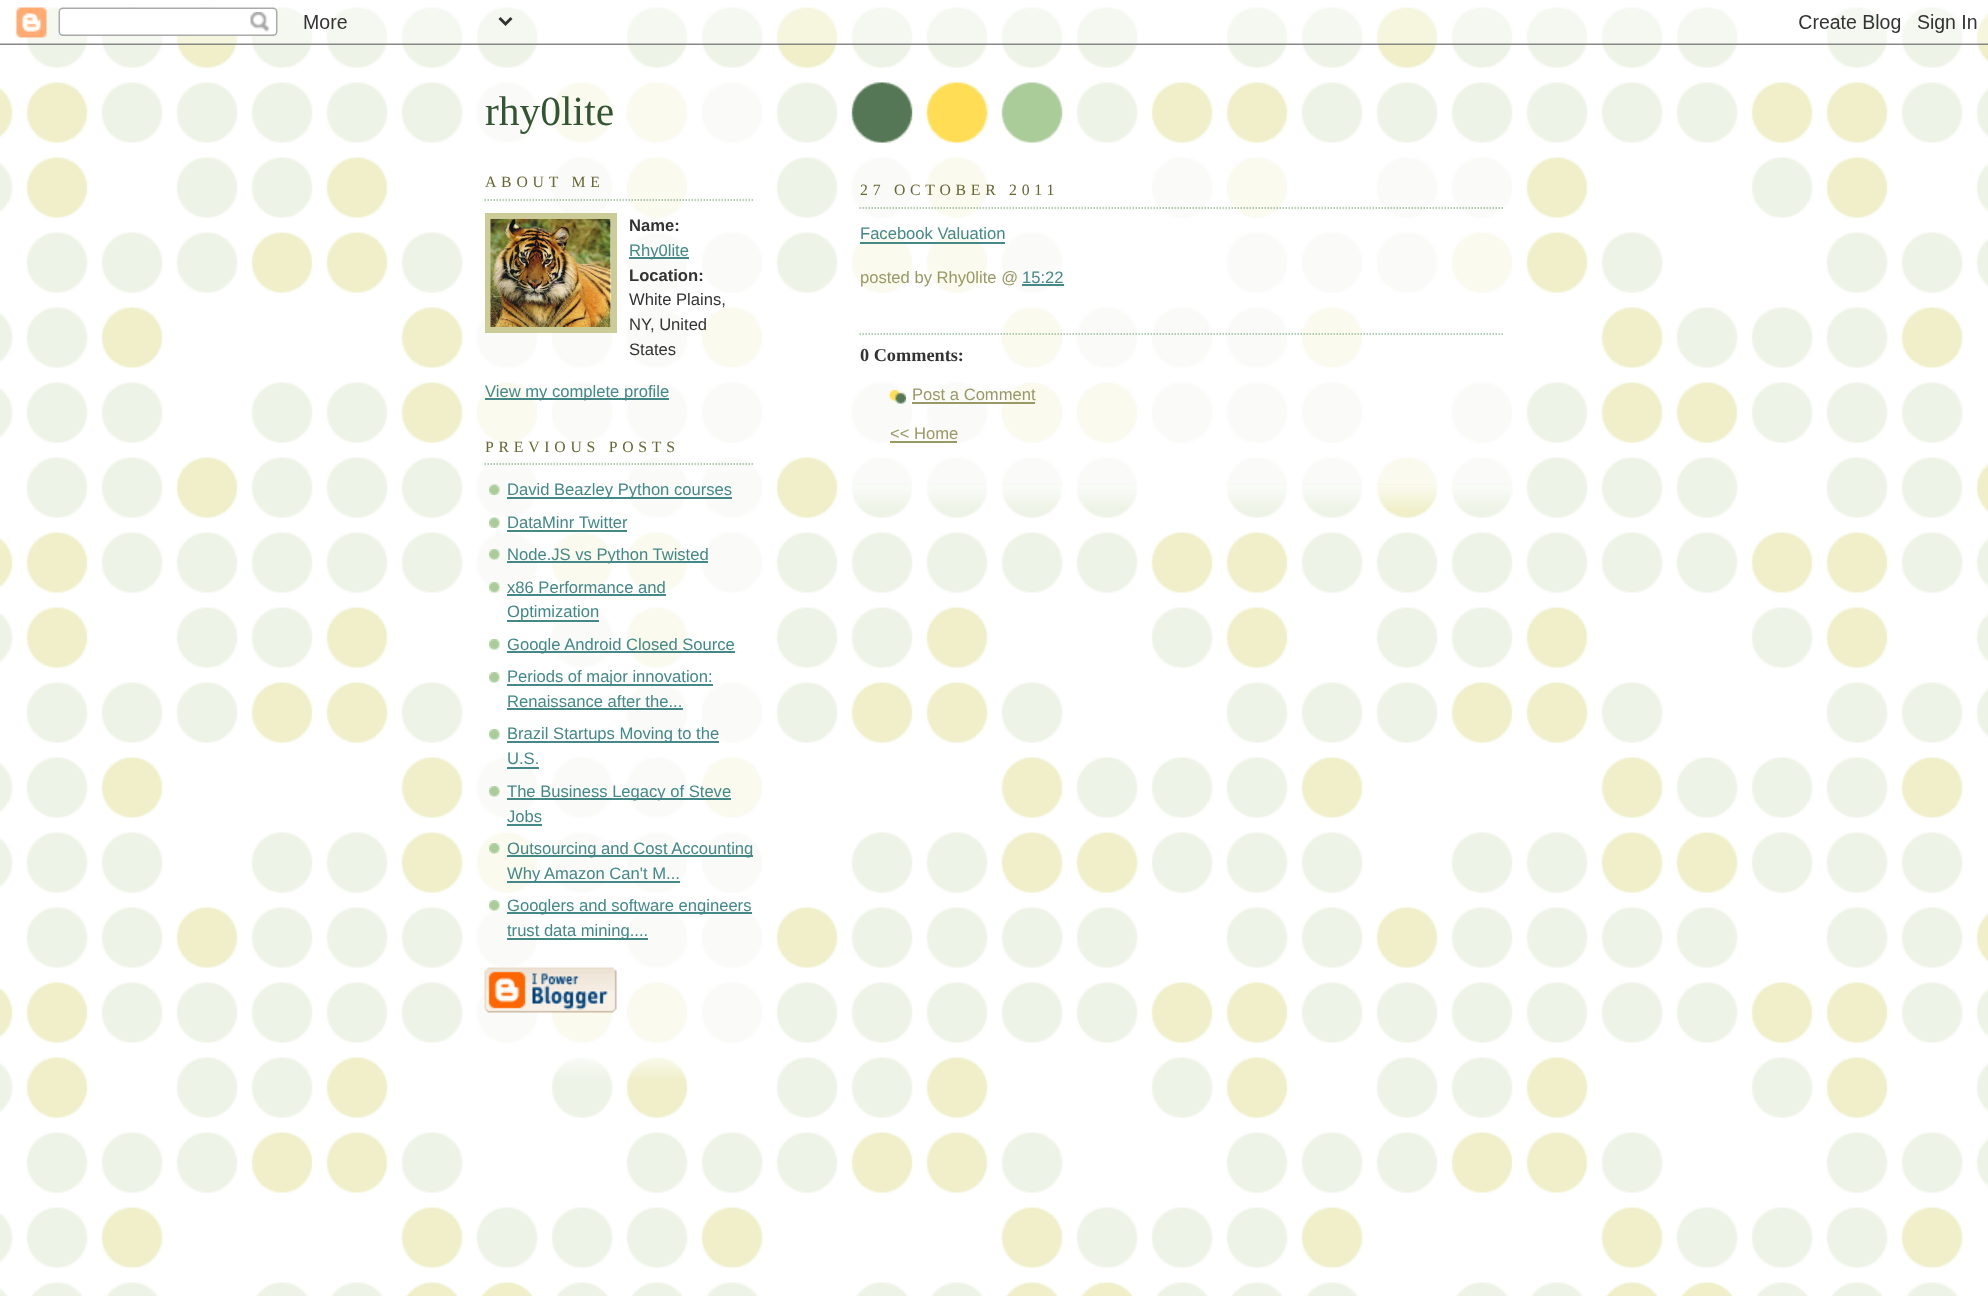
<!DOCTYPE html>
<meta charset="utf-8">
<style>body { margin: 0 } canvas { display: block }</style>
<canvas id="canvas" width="1988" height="1296"></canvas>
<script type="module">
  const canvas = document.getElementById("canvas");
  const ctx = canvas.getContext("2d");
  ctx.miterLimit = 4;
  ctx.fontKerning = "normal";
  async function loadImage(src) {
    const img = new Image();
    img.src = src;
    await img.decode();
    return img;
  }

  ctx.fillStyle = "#ffffff";
  ctx.fillRect(0, 0, 1988, 1296);
  ctx.drawImage(await loadImage("img1.png"), 0, 7, 1988, 1289);
  ctx.drawImage(await loadImage("img2.png"), 0, 7, 1988, 38);
  ctx.drawImage(await loadImage("img3.png"), 851, 82, 212, 62);
  ctx.drawImage(await loadImage("img4.png"), 556, 1057, 129, 22);
  ctx.drawImage(await loadImage("img5.png"), 476, 82, 287, 961);
  ctx.font = "41.5px Liberation Serif";
  ctx.fillStyle = "#335533";
  ctx.fillText("rhy0lite", 485, 125);
  ctx.beginPath();
  ctx.moveTo(484.5, 200);
  ctx.lineTo(754.5, 200);
  ctx.strokeStyle = "#99bb99";
  ctx.lineWidth = 1.5;
  ctx.setLineDash([1.5, 1.5]);
  ctx.stroke();
  ctx.letterSpacing = "4.75px";
  ctx.font = "15.75px Liberation Serif";
  ctx.fillStyle = "#666633";
  ctx.fillText("ABOUT ME", 485, 187);
  ctx.strokeStyle = "#cccc99";
  ctx.lineWidth = 6;
  ctx.setLineDash([]);
  ctx.strokeRect(488, 216, 126, 114);
  ctx.drawImage(await loadImage("img6.png"), 490, 219, 121, 108);
  ctx.letterSpacing = "0px";
  ctx.font = "bold 16.6px Liberation Sans";
  ctx.fillStyle = "#333333";
  ctx.fillText("Name:", 629, 231);
  ctx.fillStyle = "#448888";
  ctx.fillRect(629, 257, 60, 2);
  ctx.font = "16.6px Liberation Sans";
  ctx.fillText("Rhy0lite", 629, 256);
  ctx.font = "bold 16.6px Liberation Sans";
  ctx.fillStyle = "#333333";
  ctx.fillText("Location:", 629, 281);
  ctx.font = "16.6px Liberation Sans";
  ctx.fillText("White Plains,", 629, 305);
  ctx.fillText("NY, United", 629, 330);
  ctx.fillText("States", 629, 355);
  ctx.fillStyle = "#448888";
  ctx.fillRect(485, 398, 184, 2);
  ctx.fillText("View my complete profile", 485, 397);
  ctx.beginPath();
  ctx.moveTo(484.5, 464);
  ctx.lineTo(754.5, 464);
  ctx.strokeStyle = "#99bb99";
  ctx.lineWidth = 1.5;
  ctx.setLineDash([1.5, 1.5]);
  ctx.stroke();
  ctx.letterSpacing = "4.75px";
  ctx.font = "15.75px Liberation Serif";
  ctx.fillStyle = "#666633";
  ctx.fillText("PREVIOUS POSTS", 485, 452);
  ctx.drawImage(await loadImage("img7.png"), 489, 484, 11, 11);
  ctx.fillStyle = "#448888";
  ctx.fillRect(507, 497, 225, 2);
  ctx.letterSpacing = "0px";
  ctx.font = "16.6px Liberation Sans";
  ctx.fillText("David Beazley Python courses", 507, 495);
  ctx.drawImage(await loadImage("img8.png"), 489, 517, 11, 11);
  ctx.fillText("DataMinr Twitter", 507, 528);
  ctx.fillRect(507, 530, 120, 2);
  ctx.drawImage(await loadImage("img9.png"), 489, 549, 11, 11);
  ctx.fillRect(507, 561, 201, 2);
  ctx.fillText("Node.JS vs Python Twisted", 507, 560);
  ctx.drawImage(await loadImage("img10.png"), 489, 582, 11, 11);
  ctx.fillText("x86 Performance and", 507, 593);
  ctx.fillRect(507, 594, 159, 2);
  ctx.fillRect(507, 620, 92, 2);
  ctx.fillText("Optimization", 507, 617);
  ctx.drawImage(await loadImage("img11.png"), 489, 639, 11, 11);
  ctx.fillRect(507, 651, 228, 2);
  ctx.fillText("Google Android Closed Source", 507, 650);
  ctx.drawImage(await loadImage("img11.png"), 489, 672, 11, 11);
  ctx.fillRect(507, 684, 206, 2);
  ctx.fillText("Periods of major innovation:", 507, 682);
  ctx.fillText("Renaissance after the...", 507, 707);
  ctx.fillRect(507, 708, 176, 2);
  ctx.drawImage(await loadImage("img11.png"), 489, 729, 11, 11);
  ctx.fillRect(507, 741, 212, 2);
  ctx.fillText("Brazil Startups Moving to the", 507, 739);
  ctx.fillText("U.S.", 507, 764);
  ctx.fillRect(507, 767, 32, 2);
  ctx.drawImage(await loadImage("img9.png"), 489, 786, 11, 11);
  ctx.fillRect(507, 798, 224, 2);
  ctx.fillText("The Business Legacy of Steve", 507, 797);
  ctx.fillText("Jobs", 507, 822);
  ctx.fillRect(507, 824, 35, 2);
  ctx.drawImage(await loadImage("img12.png"), 489, 843, 11, 11);
  ctx.fillRect(507, 855, 246, 2);
  ctx.fillText("Outsourcing and Cost Accounting", 507, 854);
  ctx.fillRect(507, 881, 173, 2);
  ctx.fillText("Why Amazon Can't M...", 507, 879);
  ctx.drawImage(await loadImage("img13.png"), 489, 900, 11, 11);
  ctx.fillRect(507, 912, 245, 2);
  ctx.fillText("Googlers and software engineers", 507, 911);
  ctx.fillRect(507, 938, 141, 2);
  ctx.fillText("trust data mining....", 507, 936);
  ctx.drawImage(await loadImage("img14.png"), 484, 967, 133, 46);
  ctx.drawImage(await loadImage("img15.png"), 852, 484, 660, 25);
  ctx.drawImage(await loadImage("img16.png"), 851, 157, 662, 328);
  ctx.beginPath();
  ctx.moveTo(859.5, 208);
  ctx.lineTo(1504.5, 208);
  ctx.stroke();
  ctx.letterSpacing = "4.75px";
  ctx.font = "15.75px Liberation Serif";
  ctx.fillStyle = "#666633";
  ctx.fillText("27 OCTOBER 2011", 860, 195);
  ctx.letterSpacing = "0px";
  ctx.font = "16.6px Liberation Sans";
  ctx.fillStyle = "#448888";
  ctx.fillText("Facebook Valuation", 860, 239);
  ctx.fillRect(860, 242, 145, 2);
  ctx.fillStyle = "#999966";
  ctx.fillText("posted by Rhy0lite @", 860, 283);
  ctx.fillStyle = "#448888";
  ctx.fillText("15:22", 1022, 283);
  ctx.fillRect(1022, 284, 42, 2);
  ctx.beginPath();
  ctx.moveTo(859.5, 334);
  ctx.lineTo(1504.5, 334);
  ctx.stroke();
  ctx.font = "bold 18.25px Liberation Serif";
  ctx.fillStyle = "#333333";
  ctx.fillText("0 Comments:", 860, 361);
  ctx.drawImage(await loadImage("img17.png"), 889, 390, 17, 14);
  ctx.font = "16.6px Liberation Sans";
  ctx.fillStyle = "#999966";
  ctx.fillText("Post a Comment", 912, 400);
  ctx.fillRect(912, 402, 123, 2);
  ctx.fillText("<< Home", 890, 439);
  ctx.fillRect(890, 441, 67, 2);
</script>
